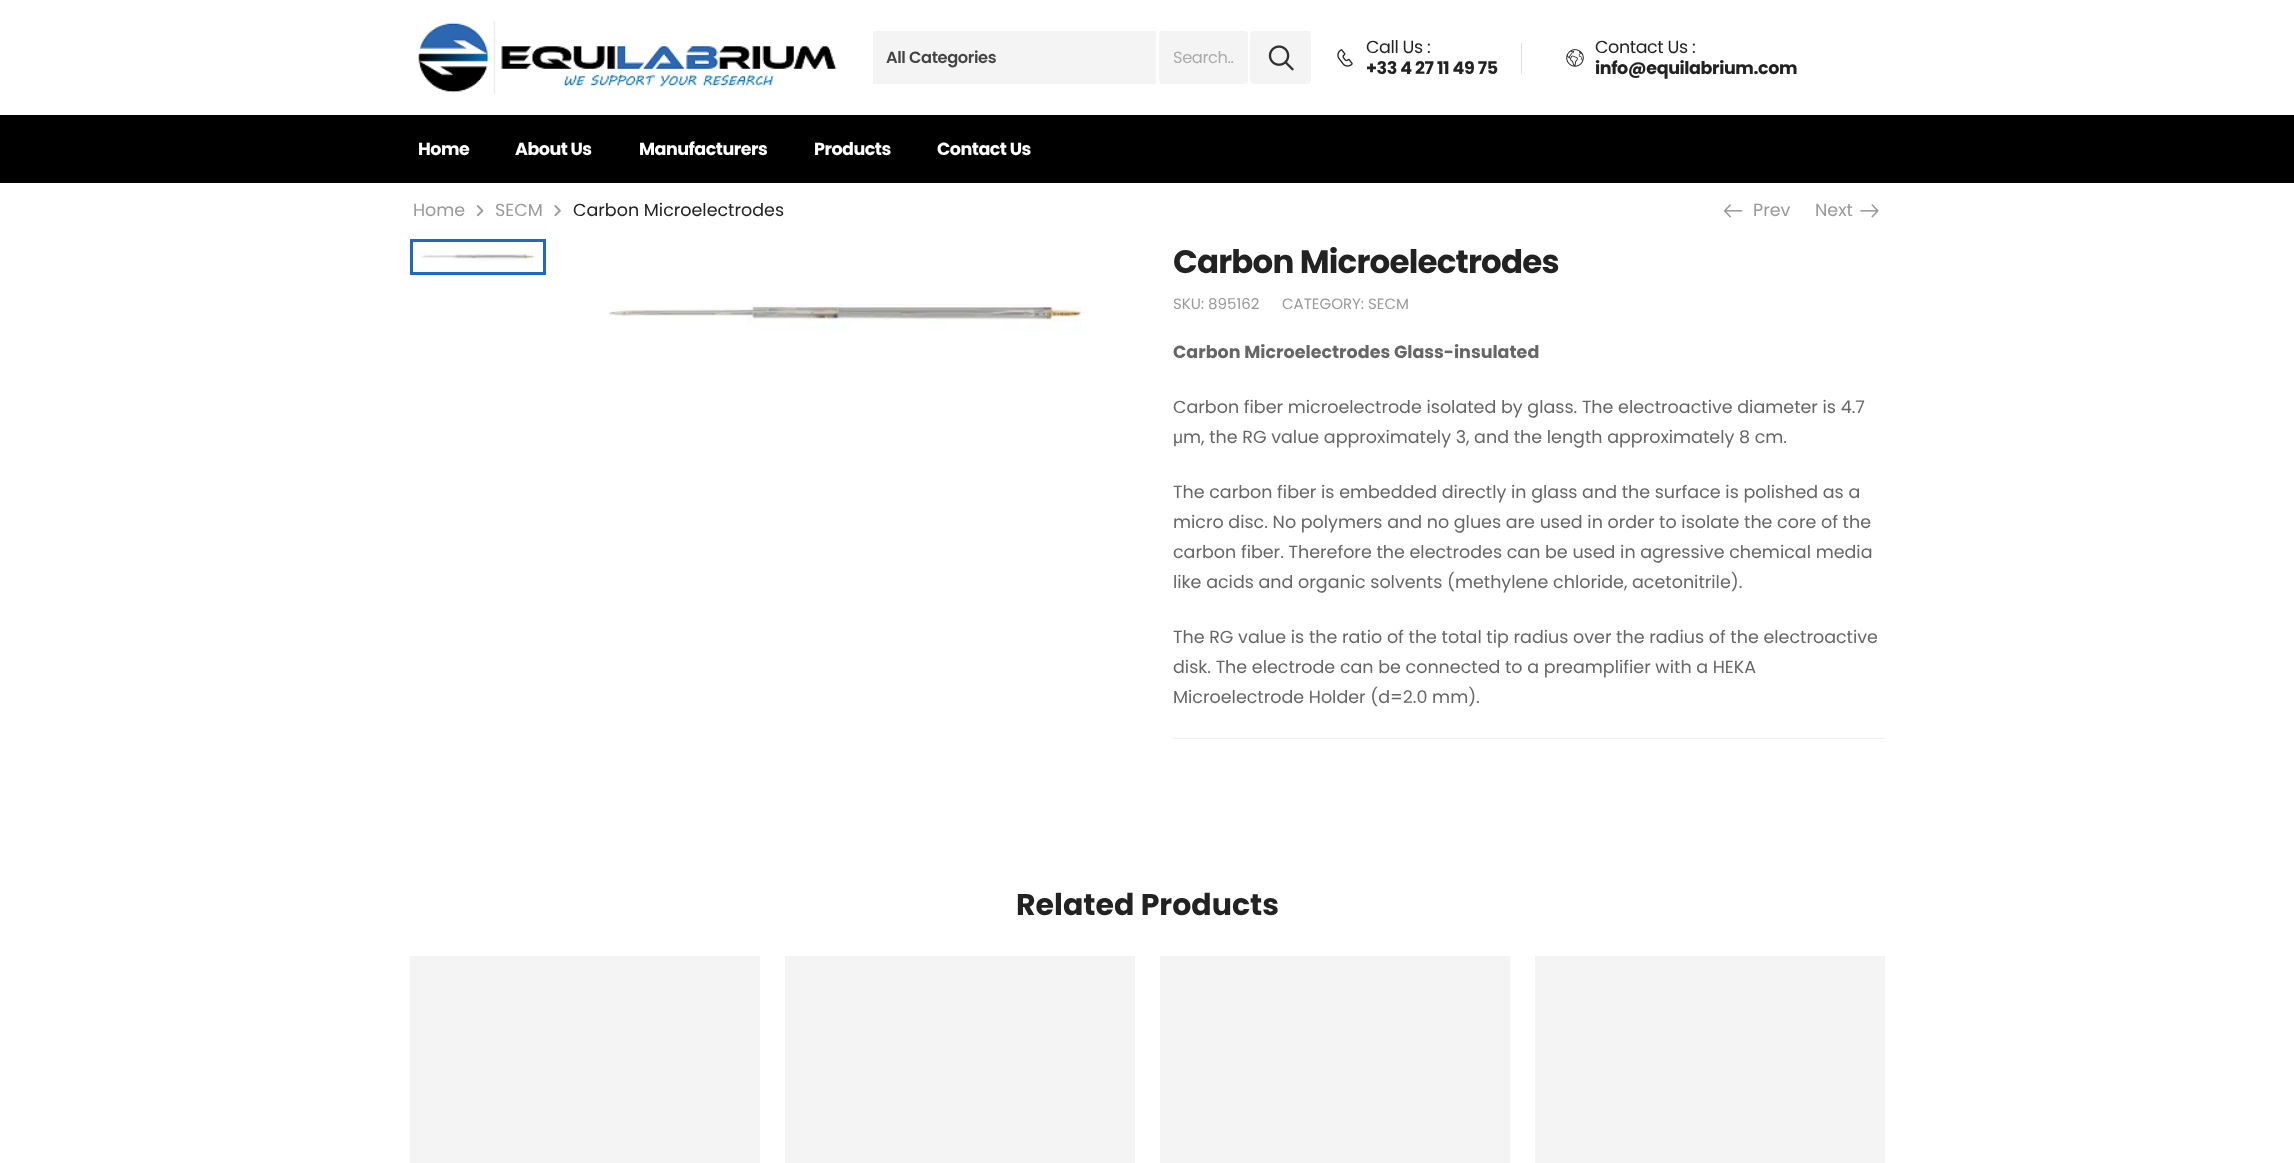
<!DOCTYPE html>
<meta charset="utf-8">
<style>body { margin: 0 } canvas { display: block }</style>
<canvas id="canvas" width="2294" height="1163"></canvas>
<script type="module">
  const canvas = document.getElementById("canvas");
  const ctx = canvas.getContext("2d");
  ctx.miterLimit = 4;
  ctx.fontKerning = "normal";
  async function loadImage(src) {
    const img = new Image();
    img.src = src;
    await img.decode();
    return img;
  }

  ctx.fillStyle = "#ffffff";
  ctx.fillRect(0, 0, 2294, 1163);
  ctx.drawImage(await loadImage("img1.png"), 418, 21, 419, 73);
  ctx.fillStyle = "#f4f4f4";
  ctx.fillRect(873, 31, 283, 53);
  ctx.letterSpacing = "-0.4px";
  ctx.font = "600 16.25px Poppins";
  ctx.fillStyle = "#444444";
  ctx.fillText("All Categories", 886, 63);
  ctx.fillStyle = "#f4f4f4";
  ctx.beginPath();
  ctx.roundRect(1159, 31, 89, 53, 4);
  ctx.fill();
  ctx.font = "16.25px Poppins";
  ctx.fillStyle = "#ababab";
  ctx.fillText("Search..", 1173, 63);
  ctx.fillStyle = "#f4f4f4";
  ctx.beginPath();
  ctx.roundRect(1250, 31, 61, 53, 4);
  ctx.fill();
  ctx.drawImage(await loadImage("img2.png"), 1268, 45, 26, 26);
  ctx.drawImage(await loadImage("img3.png"), 1337, 49, 16, 18);
  ctx.font = "17.5px Poppins";
  ctx.fillStyle = "#222222";
  ctx.fillText("Call Us :", 1366, 53);
  ctx.font = "bold 17.5px Poppins";
  ctx.fillText("+33 4 27 11 49 75", 1366, 74);
  ctx.fillStyle = "#e1e1e1";
  ctx.fillRect(1521, 43, 1, 31);
  ctx.drawImage(await loadImage("img4.png"), 1566, 49, 18, 18);
  ctx.font = "17.5px Poppins";
  ctx.fillStyle = "#222222";
  ctx.fillText("Contact Us :", 1595, 53);
  ctx.font = "bold 17.5px Poppins";
  ctx.fillText("info@equilabrium.com", 1595, 74);
  ctx.fillStyle = "#000000";
  ctx.fillRect(0, 115, 2294, 68);
  ctx.letterSpacing = "-0.5px";
  ctx.fillStyle = "#ffffff";
  ctx.fillText("Home", 418, 155);
  ctx.fillText("About Us", 515, 155);
  ctx.fillText("Manufacturers", 639, 155);
  ctx.fillText("Products", 814, 155);
  ctx.fillText("Contact Us", 937, 155);
  ctx.letterSpacing = "0px";
  ctx.font = "17.5px Poppins";
  ctx.fillStyle = "#999999";
  ctx.fillText("Home", 413, 216);
  ctx.drawImage(await loadImage("img5.png"), 476, 205, 8, 12);
  ctx.fillText("SECM", 495, 216);
  ctx.drawImage(await loadImage("img6.png"), 554, 205, 7, 12);
  ctx.fillStyle = "#222222";
  ctx.fillText("Carbon Microelectrodes", 573, 216);
  ctx.drawImage(await loadImage("img7.png"), 1723, 204, 20, 14);
  ctx.fillStyle = "#999999";
  ctx.fillText("Prev", 1753, 216);
  ctx.fillText("Next", 1815, 216);
  ctx.drawImage(await loadImage("img8.png"), 1860, 204, 19, 14);
  ctx.drawImage(await loadImage("img9.png"), 421, 253, 114, 9);
  ctx.strokeStyle = "#2266cc";
  ctx.lineWidth = 3;
  ctx.strokeRect(411.5, 240.5, 133, 33);
  ctx.drawImage(await loadImage("img10.png"), 608, 304, 474, 27);
  ctx.letterSpacing = "-0.8px";
  ctx.font = "bold 32.5px Poppins";
  ctx.fillStyle = "#222222";
  ctx.fillText("Carbon Microelectrodes", 1173, 273);
  ctx.letterSpacing = "0px";
  ctx.font = "15px Poppins";
  ctx.fillStyle = "#999999";
  ctx.fillText("SKU: 895162", 1173, 309);
  ctx.fillText("CATEGORY: SECM", 1282, 309);
  ctx.font = "bold 17.5px Poppins";
  ctx.fillStyle = "#666666";
  ctx.fillText("Carbon Microelectrodes Glass-insulated", 1173, 358);
  ctx.font = "17.5px Poppins";
  ctx.fillText("Carbon fiber microelectrode isolated by glass. The electroactive diameter is 4.7", 1173, 413);
  ctx.font = "17.5px Liberation Sans";
  ctx.fillText("μ", 1173, 443);
  ctx.font = "17.5px Poppins";
  ctx.fillText("m, the RG value approximately 3, and the length approximately 8 cm.", 1183, 443);
  ctx.fillText("The carbon fiber is embedded directly in glass and the surface is polished as a", 1173, 498);
  ctx.fillText("micro disc. No polymers and no glues are used in order to isolate the core of the", 1173, 528);
  ctx.fillText("carbon fiber. Therefore the electrodes can be used in agressive chemical media", 1173, 558);
  ctx.fillText("like acids and organic solvents (methylene chloride, acetonitrile).", 1173, 588);
  ctx.fillText("The RG value is the ratio of the total tip radius over the radius of the electroactive", 1173, 643);
  ctx.fillText("disk. The electrode can be connected to a preamplifier with a HEKA", 1173, 673);
  ctx.fillText("Microelectrode Holder (d=2.0 mm).", 1173, 703);
  ctx.fillStyle = "#eeeeee";
  ctx.fillRect(1173, 738, 712, 1);
  ctx.font = "bold 30px Poppins";
  ctx.fillStyle = "#222222";
  ctx.fillText("Related Products", 1016, 915);
  ctx.fillStyle = "#f4f4f4";
  ctx.fillRect(410, 956, 350, 207);
  ctx.fillRect(785, 956, 350, 207);
  ctx.fillRect(1160, 956, 350, 207);
  ctx.fillRect(1535, 956, 350, 207);
</script>
